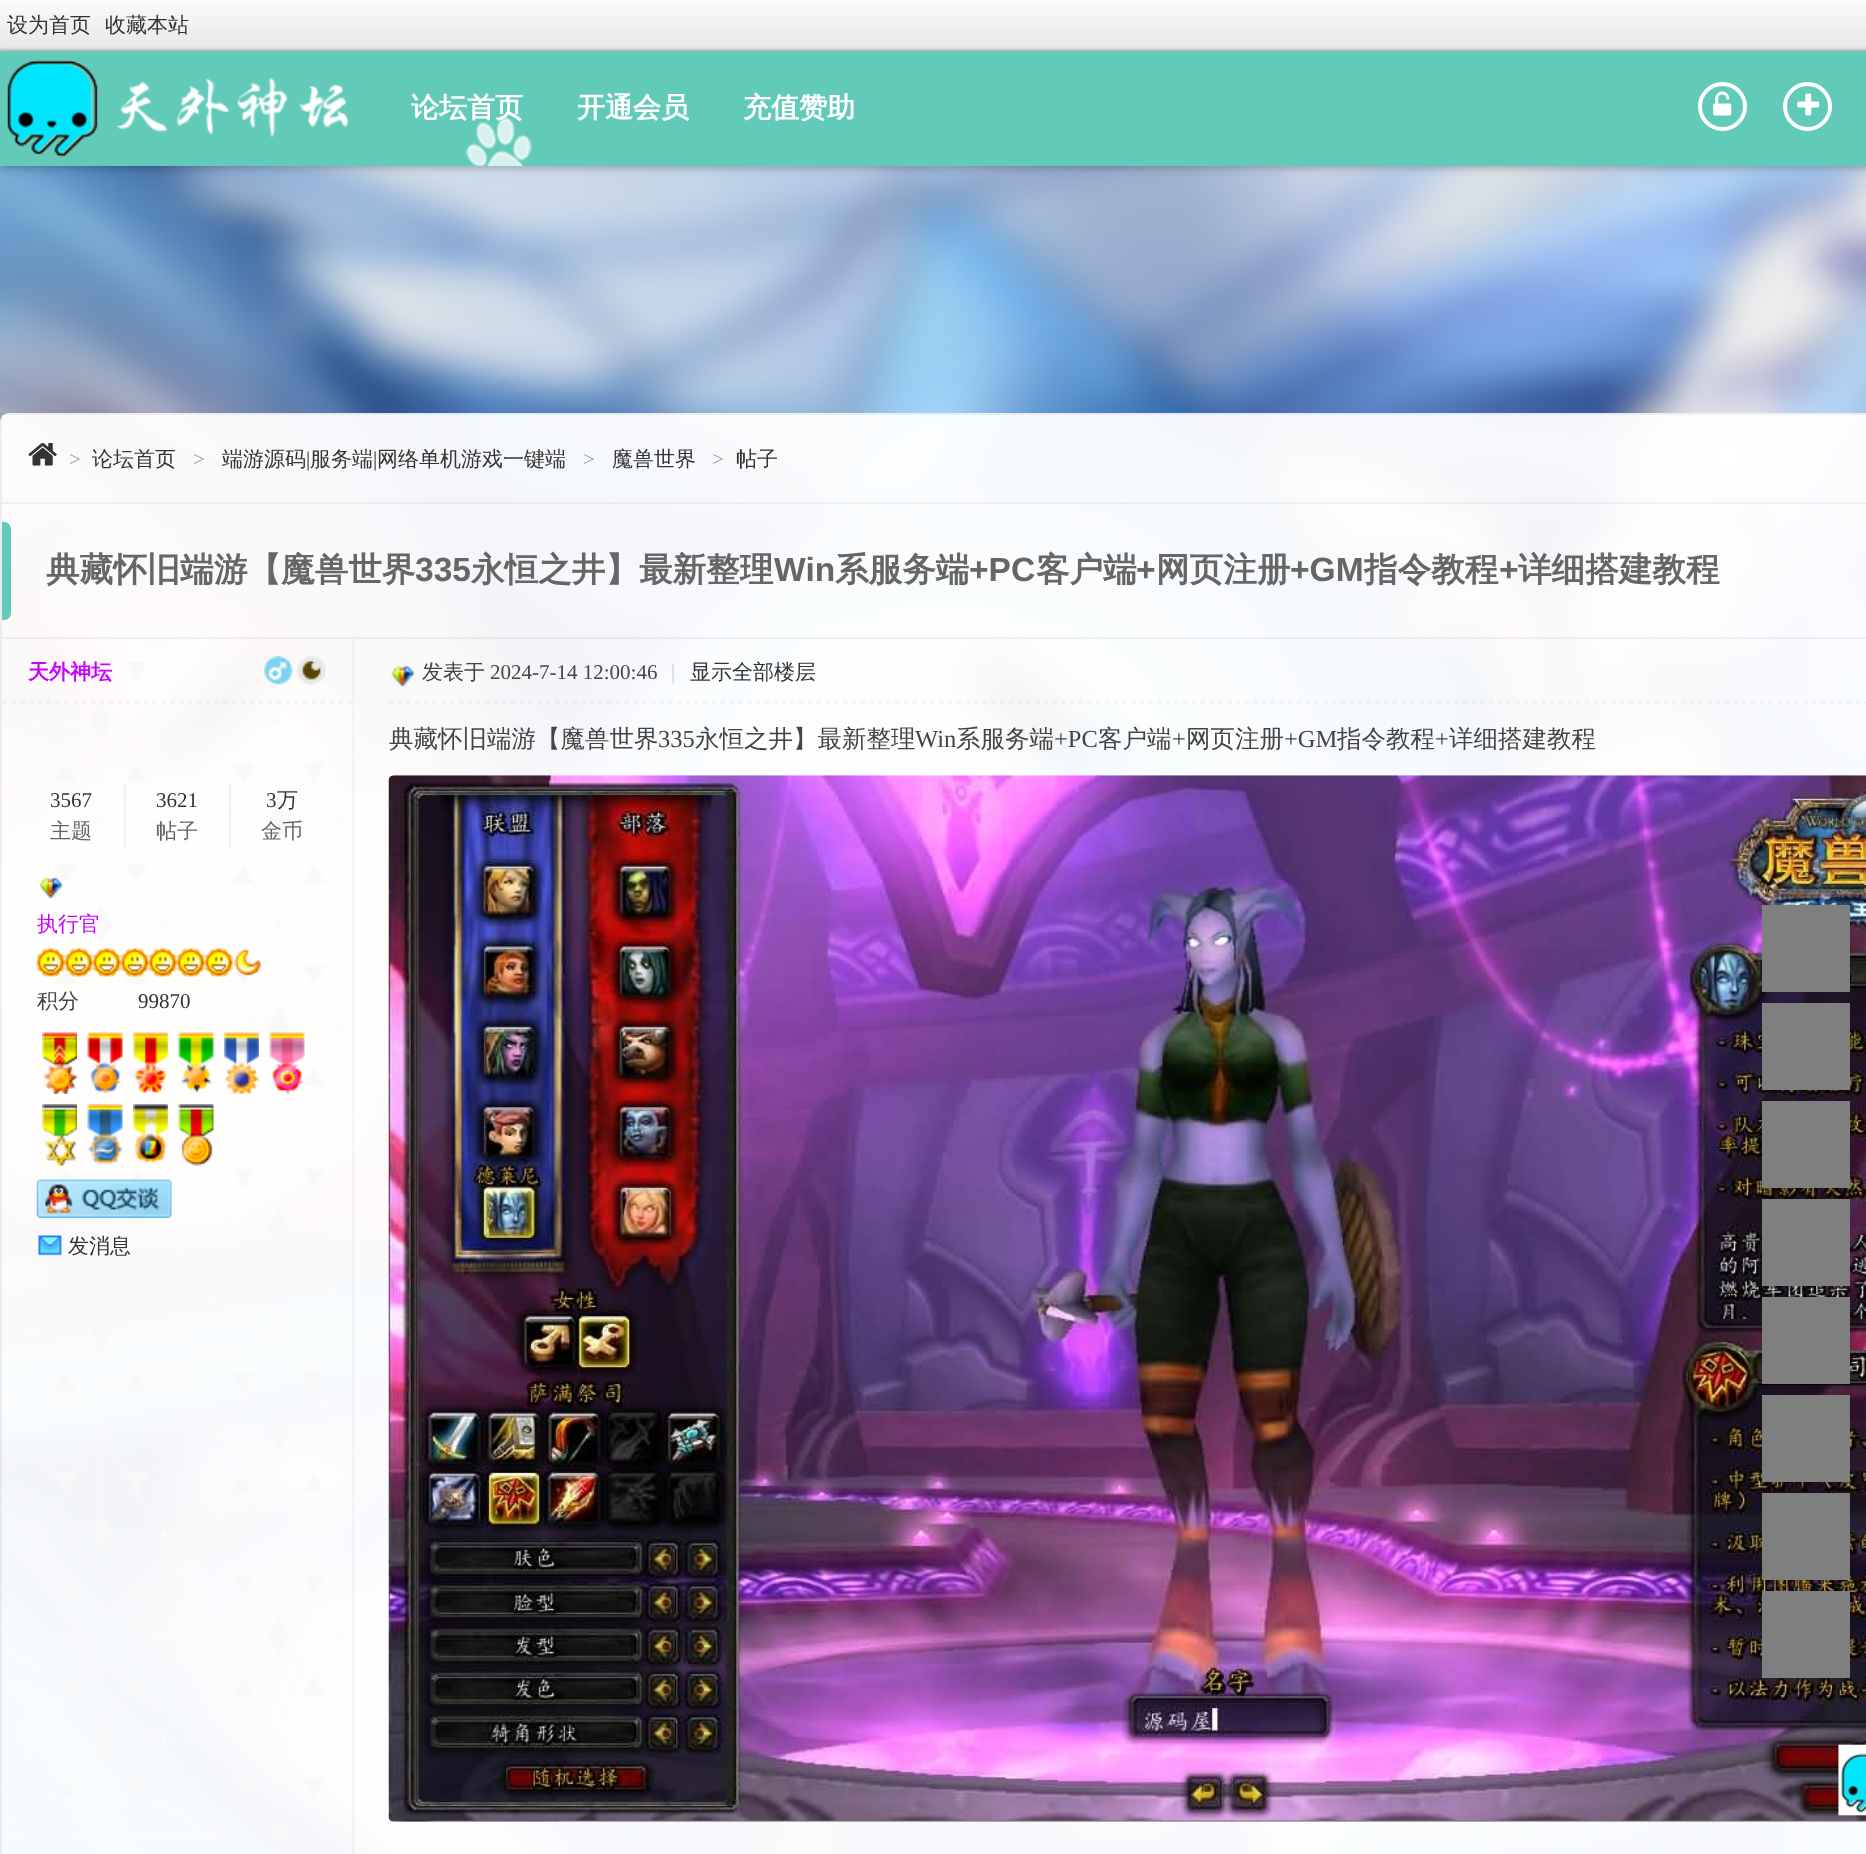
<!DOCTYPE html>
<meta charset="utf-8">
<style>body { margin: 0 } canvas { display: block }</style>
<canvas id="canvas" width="1866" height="1854"></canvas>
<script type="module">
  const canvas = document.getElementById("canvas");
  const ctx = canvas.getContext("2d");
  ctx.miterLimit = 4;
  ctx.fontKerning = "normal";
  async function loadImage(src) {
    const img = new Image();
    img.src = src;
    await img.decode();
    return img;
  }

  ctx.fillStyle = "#ffffff";
  ctx.fillRect(0, 0, 1866, 1854);
  ctx.drawImage(await loadImage("img1.png"), 0, 166, 1866, 1688);
  ctx.drawImage(await loadImage("img2.png"), 0, 0, 1866, 49);
  ctx.fillStyle = "#cdcdcd";
  ctx.fillRect(0, 49, 1866, 2);
  ctx.font = "500 21px WenQuanYi Zen Hei";
  ctx.fillStyle = "#333333";
  ctx.fillText("设为首页", 7, 32);
  ctx.fillText("收藏本站", 105, 32);
  ctx.fillStyle = "rgba(0, 0, 0, 0.25)";
  ctx.filter = "blur(4.5px)";
  ctx.beginPath();
  ctx.rect(0, 53, 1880, 115);
  ctx.fill();
  ctx.filter = "none";
  ctx.fillStyle = "#61cab8";
  ctx.fillRect(0, 51, 1866, 115);
  ctx.drawImage(await loadImage("img3.png"), 6, 60, 343, 98);
  ctx.drawImage(await loadImage("img4.png"), 465, 117, 68, 50);
  ctx.font = "bold 28px WenQuanYi Zen Hei";
  ctx.fillStyle = "#ffffff";
  ctx.fillText("论坛首页", 411, 117);
  ctx.fillText("开通会员", 577, 117);
  ctx.fillText("充值赞助", 743, 117);
  ctx.beginPath();
  ctx.arc(1722.5, 106.5, 22.5, 0, Math.PI * 2);
  ctx.strokeStyle = "#ffffff";
  ctx.lineWidth = 4;
  ctx.stroke();
  ctx.drawImage(await loadImage("img5.png"), 1713, 91, 19, 25);
  ctx.beginPath();
  ctx.arc(1807.5, 106.5, 22.5, 0, Math.PI * 2);
  ctx.stroke();
  ctx.drawImage(await loadImage("img6.png"), 1797, 93, 23, 23);
  ctx.drawImage(await loadImage("img7.png"), 0, 413, 1866, 1441);
  ctx.strokeStyle = "rgba(0, 0, 0, 0.05)";
  ctx.lineWidth = 2;
  ctx.strokeRect(1, 414, 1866, 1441);
  ctx.fillStyle = "rgba(0, 0, 0, 0.05)";
  ctx.fillRect(2, 502, 1864, 2);
  ctx.drawImage(await loadImage("img8.png"), 28, 443, 29, 23);
  ctx.font = "21px Liberation Serif";
  ctx.fillStyle = "#999999";
  ctx.fillText(">", 69, 466);
  ctx.font = "500 21px WenQuanYi Zen Hei";
  ctx.fillStyle = "#333333";
  ctx.fillText("论坛首页", 92, 466);
  ctx.font = "21px Liberation Serif";
  ctx.fillStyle = "#999999";
  ctx.fillText(">", 193, 466);
  ctx.font = "500 21px WenQuanYi Zen Hei";
  ctx.fillStyle = "#333333";
  ctx.fillText("端游源码", 222, 466);
  ctx.font = "21px Liberation Serif";
  ctx.fillText("|", 306, 466);
  ctx.font = "500 21px WenQuanYi Zen Hei";
  ctx.fillText("服务端", 310, 466);
  ctx.font = "21px Liberation Serif";
  ctx.fillText("|", 373, 466);
  ctx.font = "500 21px WenQuanYi Zen Hei";
  ctx.fillText("网络单机游戏一键端", 377, 466);
  ctx.font = "21px Liberation Serif";
  ctx.fillStyle = "#999999";
  ctx.fillText(">", 583, 466);
  ctx.font = "500 21px WenQuanYi Zen Hei";
  ctx.fillStyle = "#333333";
  ctx.fillText("魔兽世界", 612, 466);
  ctx.font = "21px Liberation Serif";
  ctx.fillStyle = "#999999";
  ctx.fillText(">", 712, 466);
  ctx.font = "500 21px WenQuanYi Zen Hei";
  ctx.fillStyle = "#333333";
  ctx.fillText("帖子", 736, 466);
  ctx.fillStyle = "rgba(0, 0, 0, 0.05)";
  ctx.fillRect(2, 637, 1864, 2);
  ctx.fillStyle = "#61cab8";
  ctx.beginPath();
  ctx.roundRect(2, 522, 9, 98, [0, 7, 7, 0]);
  ctx.fill();
  ctx.font = "bold 33.6px WenQuanYi Zen Hei";
  ctx.fillStyle = "#666666";
  ctx.fillText("典藏怀旧端游【魔兽世界", 46, 581);
  ctx.font = "bold 33.6px Liberation Sans";
  ctx.fillText("335", 415, 581);
  ctx.font = "bold 33.6px WenQuanYi Zen Hei";
  ctx.fillText("永恒之井】最新整理", 471, 581);
  ctx.font = "bold 33.6px Liberation Sans";
  ctx.fillText("Win", 774, 581);
  ctx.font = "bold 33.6px WenQuanYi Zen Hei";
  ctx.fillText("系服务端", 835, 581);
  ctx.font = "bold 33.6px Liberation Sans";
  ctx.fillText("+PC", 969, 581);
  ctx.font = "bold 33.6px WenQuanYi Zen Hei";
  ctx.fillText("客户端", 1036, 581);
  ctx.font = "bold 33.6px Liberation Sans";
  ctx.fillText("+", 1136, 581);
  ctx.font = "bold 33.6px WenQuanYi Zen Hei";
  ctx.fillText("网页注册", 1156, 581);
  ctx.font = "bold 33.6px Liberation Sans";
  ctx.fillText("+GM", 1290, 581);
  ctx.font = "bold 33.6px WenQuanYi Zen Hei";
  ctx.fillText("指令教程", 1364, 581);
  ctx.font = "bold 33.6px Liberation Sans";
  ctx.fillText("+", 1499, 581);
  ctx.font = "bold 33.6px WenQuanYi Zen Hei";
  ctx.fillText("详细搭建教程", 1518, 581);
  ctx.fillStyle = "#f3f1f2";
  ctx.fillRect(352, 639, 2, 2);
  ctx.fillStyle = "rgba(0, 0, 0, 0.03)";
  ctx.fillRect(352, 639, 2, 1215);
  ctx.drawImage(await loadImage("img9.png"), 11, 662, 332, 1177);
  ctx.beginPath();
  ctx.moveTo(2, 702.5);
  ctx.lineTo(352, 702.5);
  ctx.lineWidth = 1.8;
  ctx.setLineDash([5.25, 3.59]);
  ctx.stroke();
  ctx.font = "bold 21px WenQuanYi Zen Hei";
  ctx.fillStyle = "#cc00ff";
  ctx.fillText("天外神坛", 28, 679);
  ctx.drawImage(await loadImage("img10.png"), 264, 656, 29, 29);
  ctx.drawImage(await loadImage("img11.png"), 297, 656, 29, 29);
  ctx.fillStyle = "#f1f1f0";
  ctx.fillRect(124, 784, 2, 65);
  ctx.font = "21px Liberation Serif";
  ctx.fillStyle = "#333333";
  ctx.fillText("3567", 50, 807);
  ctx.font = "500 21px WenQuanYi Zen Hei";
  ctx.fillStyle = "#666666";
  ctx.fillText("主题", 50, 838);
  ctx.fillStyle = "#f1f0f0";
  ctx.fillRect(229, 784, 2, 65);
  ctx.font = "21px Liberation Serif";
  ctx.fillStyle = "#333333";
  ctx.fillText("3621", 156, 807);
  ctx.font = "500 21px WenQuanYi Zen Hei";
  ctx.fillStyle = "#666666";
  ctx.fillText("帖子", 156, 838);
  ctx.font = "21px Liberation Serif";
  ctx.fillStyle = "#333333";
  ctx.fillText("3", 266, 807);
  ctx.font = "500 21px WenQuanYi Zen Hei";
  ctx.fillText("万", 277, 807);
  ctx.fillStyle = "#666666";
  ctx.fillText("金币", 261, 838);
  ctx.drawImage(await loadImage("img12.png"), 39, 876, 25, 23);
  ctx.fillStyle = "#cc00ff";
  ctx.fillText("执行官", 37, 931);
  ctx.drawImage(await loadImage("img13.png"), 36, 948, 29, 29);
  ctx.drawImage(await loadImage("img14.png"), 64, 948, 29, 29);
  ctx.drawImage(await loadImage("img15.png"), 92, 948, 29, 29);
  ctx.drawImage(await loadImage("img16.png"), 120, 948, 29, 29);
  ctx.drawImage(await loadImage("img17.png"), 148, 948, 29, 29);
  ctx.drawImage(await loadImage("img18.png"), 176, 948, 29, 29);
  ctx.drawImage(await loadImage("img19.png"), 204, 948, 29, 29);
  ctx.drawImage(await loadImage("img20.png"), 234, 948, 27, 28);
  ctx.fillStyle = "#444444";
  ctx.fillText("积分", 37, 1008);
  ctx.font = "21px Liberation Serif";
  ctx.fillStyle = "#333333";
  ctx.fillText("99870", 138, 1008);
  ctx.drawImage(await loadImage("img21.png"), 42, 1032, 35, 62);
  ctx.drawImage(await loadImage("img22.png"), 87, 1032, 36, 62);
  ctx.drawImage(await loadImage("img23.png"), 133, 1032, 35, 62);
  ctx.drawImage(await loadImage("img24.png"), 178, 1032, 36, 61);
  ctx.drawImage(await loadImage("img25.png"), 224, 1032, 35, 62);
  ctx.drawImage(await loadImage("img26.png"), 269, 1032, 36, 62);
  ctx.drawImage(await loadImage("img27.png"), 42, 1104, 35, 62);
  ctx.drawImage(await loadImage("img28.png"), 87, 1104, 36, 61);
  ctx.drawImage(await loadImage("img29.png"), 133, 1104, 35, 59);
  ctx.drawImage(await loadImage("img30.png"), 178, 1104, 36, 62);
  ctx.drawImage(await loadImage("img31.png"), 36, 1179, 136, 39);
  ctx.drawImage(await loadImage("img32.png"), 38, 1235, 24, 21);
  ctx.font = "500 21px WenQuanYi Zen Hei";
  ctx.fillText("发消息", 68, 1253);
  ctx.beginPath();
  ctx.moveTo(388.5, 702.5);
  ctx.lineTo(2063, 702.5);
  ctx.setLineDash([5.25, 3.48]);
  ctx.stroke();
  ctx.drawImage(await loadImage("img33.png"), 391, 664, 24, 23);
  ctx.fillStyle = "#444444";
  ctx.fillText("发表于", 422, 679);
  ctx.font = "21px Liberation Serif";
  ctx.fillText("2024-7-14 12:00:46", 490, 679);
  ctx.fillStyle = "#cccccc";
  ctx.fillText("|", 671, 679);
  ctx.font = "500 21px WenQuanYi Zen Hei";
  ctx.fillStyle = "#333333";
  ctx.fillText("显示全部楼层", 690, 679);
  ctx.font = "500 24.5px WenQuanYi Zen Hei";
  ctx.fillStyle = "#444444";
  ctx.fillText("典藏怀旧端游【魔兽世界", 389, 747);
  ctx.font = "24.5px Liberation Serif";
  ctx.fillText("335", 658, 747);
  ctx.font = "500 24.5px WenQuanYi Zen Hei";
  ctx.fillText("永恒之井】最新整理", 695, 747);
  ctx.font = "24.5px Liberation Serif";
  ctx.fillText("Win", 915, 747);
  ctx.font = "500 24.5px WenQuanYi Zen Hei";
  ctx.fillText("系服务端", 956, 747);
  ctx.font = "24.5px Liberation Serif";
  ctx.fillText("+PC", 1054, 747);
  ctx.font = "500 24.5px WenQuanYi Zen Hei";
  ctx.fillText("客户端", 1098, 747);
  ctx.font = "24.5px Liberation Serif";
  ctx.fillText("+", 1172, 747);
  ctx.font = "500 24.5px WenQuanYi Zen Hei";
  ctx.fillText("网页注册", 1186, 747);
  ctx.font = "24.5px Liberation Serif";
  ctx.fillText("+GM", 1284, 747);
  ctx.font = "500 24.5px WenQuanYi Zen Hei";
  ctx.fillText("指令教程", 1337, 747);
  ctx.font = "24.5px Liberation Serif";
  ctx.fillText("+", 1435, 747);
  ctx.font = "500 24.5px WenQuanYi Zen Hei";
  ctx.fillText("详细搭建教程", 1449, 747);
  ctx.drawImage(await loadImage("img34.png"), 388, 775, 1478, 1047);
  ctx.fillStyle = "#7f7f7f";
  ctx.fillRect(1762, 905, 88, 87);
  ctx.fillRect(1762, 1003, 88, 87);
  ctx.fillRect(1762, 1101, 88, 87);
  ctx.fillRect(1762, 1199, 88, 87);
  ctx.fillRect(1762, 1297, 88, 87);
  ctx.fillRect(1762, 1395, 88, 87);
  ctx.fillRect(1762, 1493, 88, 87);
  ctx.fillRect(1762, 1591, 88, 87);
</script>
